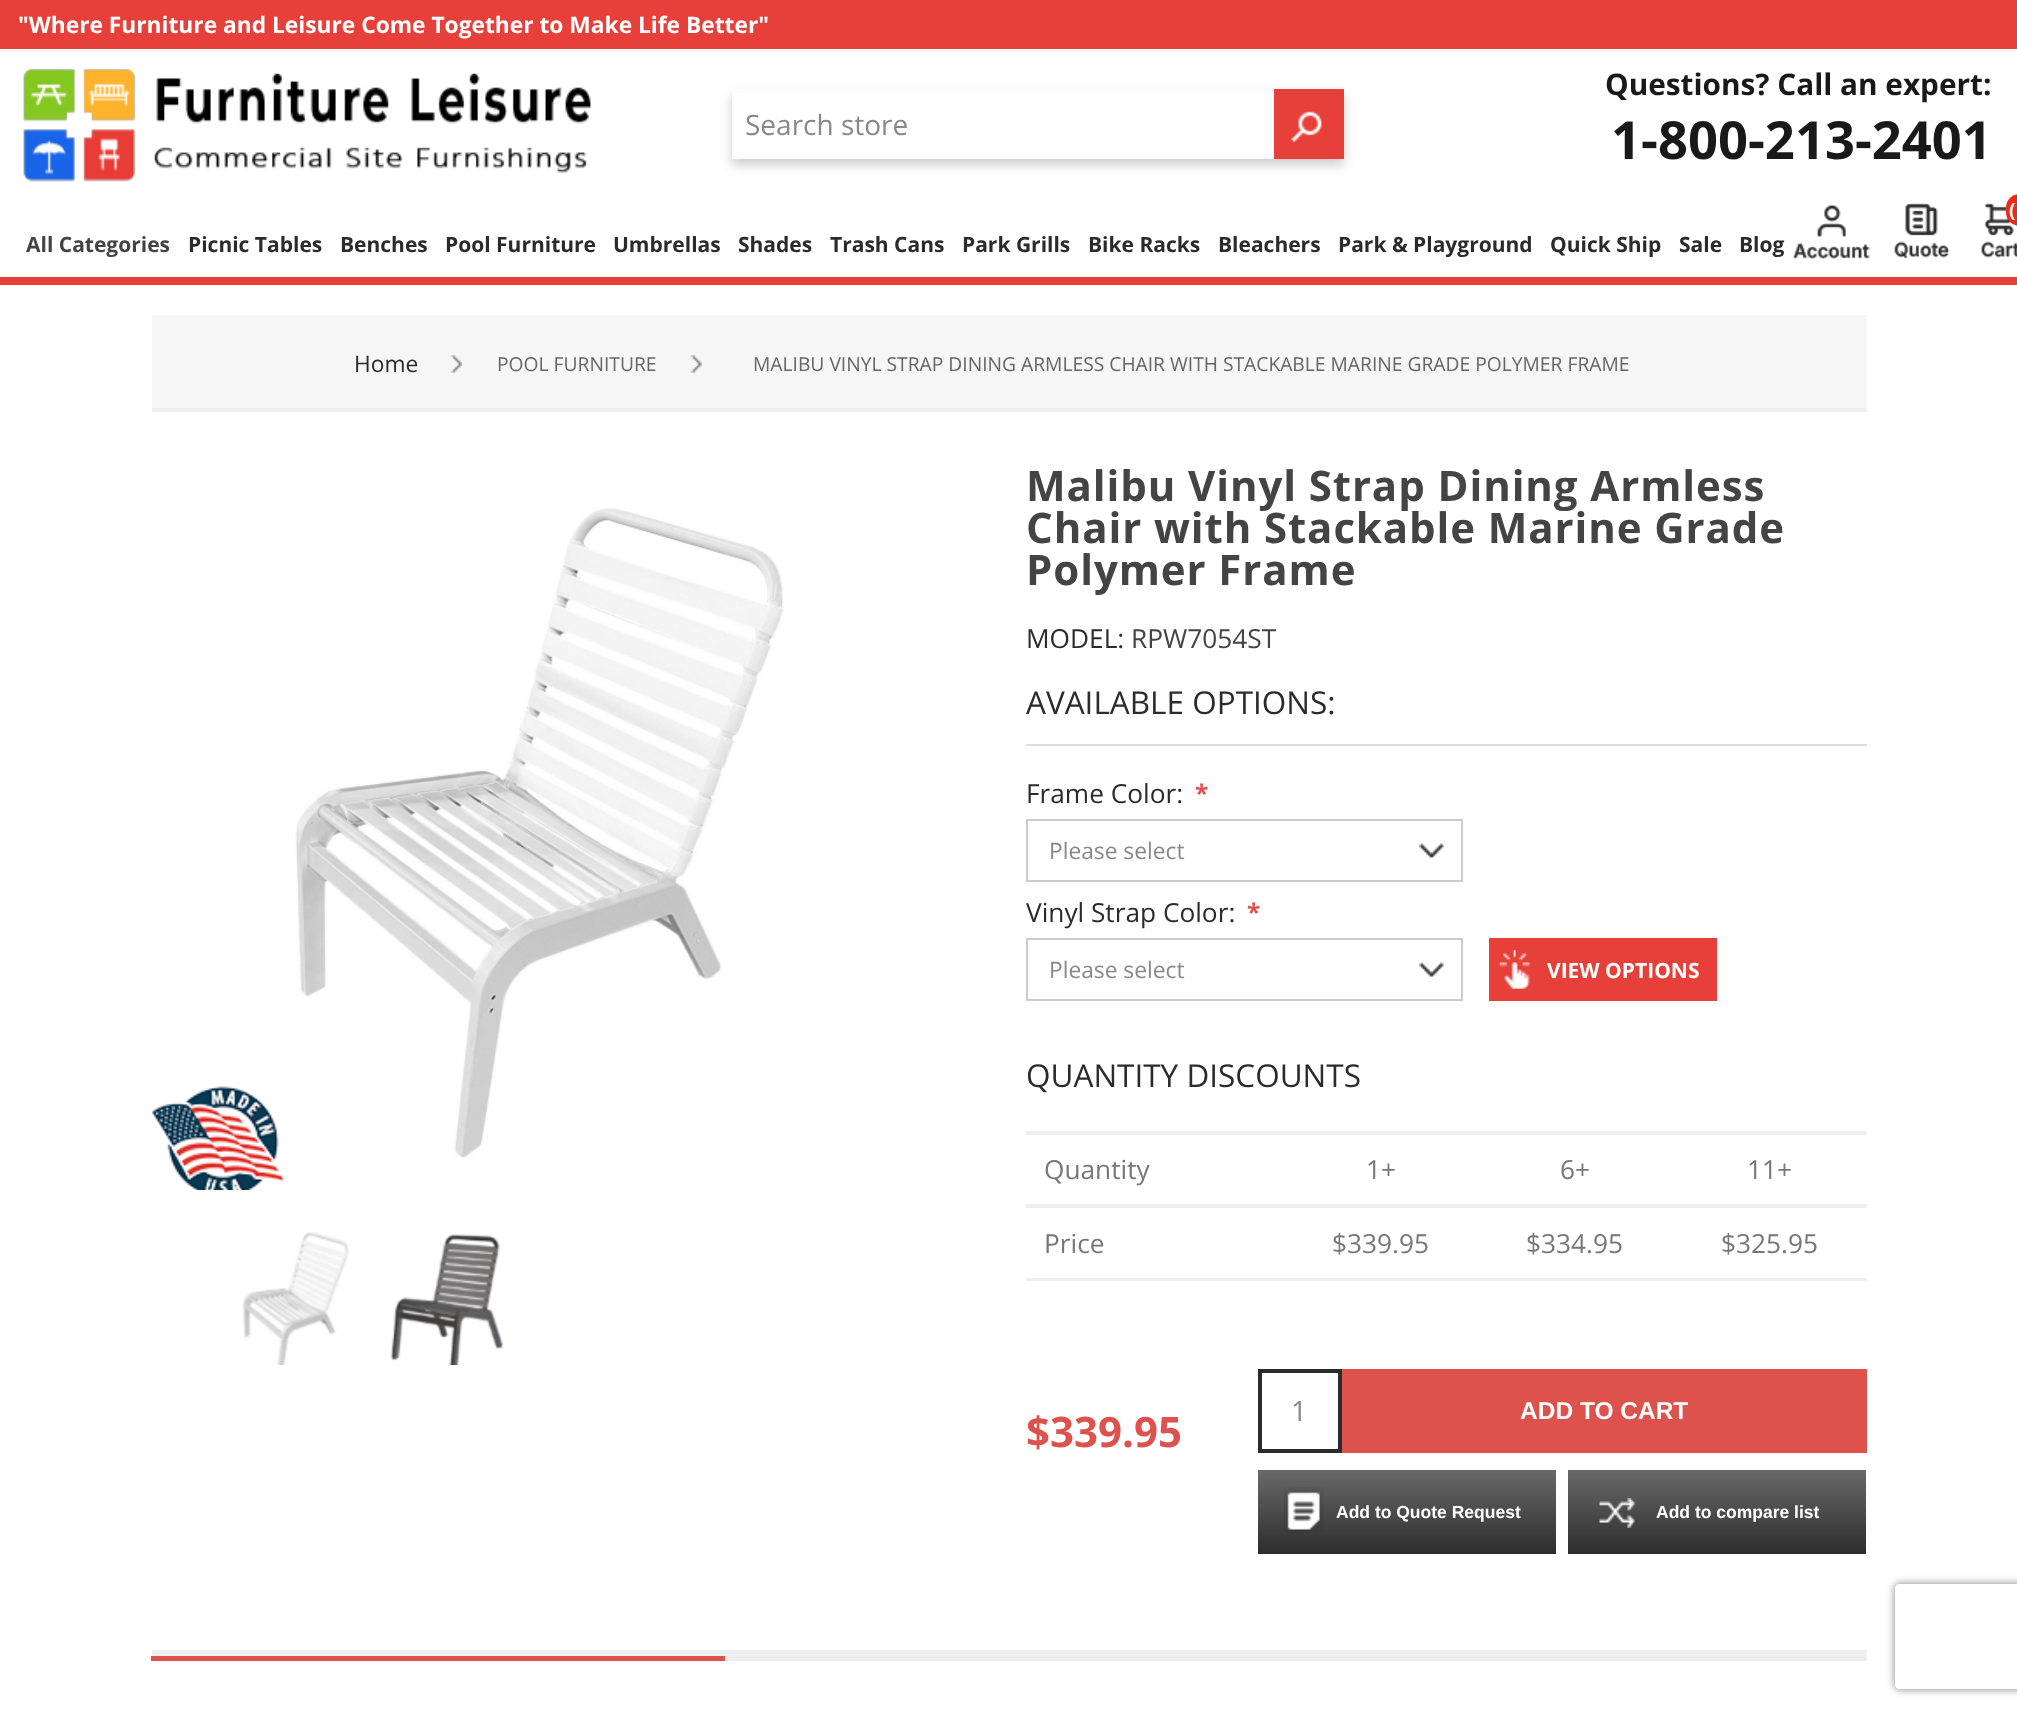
<!DOCTYPE html>
<meta charset="utf-8">
<style>body { margin: 0 } canvas { display: block }</style>
<canvas id="canvas" width="2017" height="1712"></canvas>
<script type="module">
  const canvas = document.getElementById("canvas");
  const ctx = canvas.getContext("2d");
  ctx.miterLimit = 4;
  ctx.fontKerning = "normal";
  async function loadImage(src) {
    const img = new Image();
    img.src = src;
    await img.decode();
    return img;
  }
  let gradient;

  ctx.fillStyle = "#ffffff";
  ctx.fillRect(0, 0, 2017, 1712);
  ctx.fillStyle = "#e73f39";
  ctx.fillRect(0, 0, 2017, 49);
  ctx.font = "bold 22.75px Open Sans";
  ctx.fillStyle = "#ffffff";
  ctx.fillText("\"Where Furniture and Leisure Come Together to Make Life Better\"", 18, 33);
  ctx.drawImage(await loadImage("img1.png"), 23, 69, 568, 113);
  ctx.fillStyle = "rgba(0, 0, 0, 0.2)";
  ctx.filter = "blur(6px)";
  ctx.beginPath();
  ctx.rect(732, 95, 612, 70);
  ctx.fill();
  ctx.filter = "none";
  ctx.fillStyle = "#f9fdff";
  ctx.fillRect(732, 89, 542, 70);
  ctx.fillStyle = "#ffffff";
  ctx.fillRect(732, 93, 542, 63);
  ctx.font = "28px Open Sans";
  ctx.fillStyle = "#888888";
  ctx.fillText("Search store", 745, 135);
  ctx.fillStyle = "#e73f39";
  ctx.fillRect(1274, 89, 70, 70);
  ctx.drawImage(await loadImage("img2.png"), 1291, 111, 31, 32);
  ctx.font = "bold 29.75px Open Sans";
  ctx.fillStyle = "#191919";
  ctx.fillText("Questions? Call an expert:", 1605, 95);
  ctx.font = "bold 52.5px Open Sans";
  ctx.fillText("1-800-213-2401", 1611, 159);
  ctx.fillStyle = "#e73f39";
  ctx.fillRect(0, 277, 2017, 8);
  ctx.drawImage(await loadImage("img3.png"), 1793, 204, 77, 55);
  ctx.drawImage(await loadImage("img4.png"), 1894, 203, 56, 56);
  ctx.drawImage(await loadImage("img5.png"), 1981, 203, 36, 55);
  ctx.fillStyle = "#f42717";
  ctx.beginPath();
  ctx.roundRect(2006, 194, 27, 32, 15.5);
  ctx.fill();
  ctx.font = "bold 19.25px Open Sans";
  ctx.fillStyle = "#ffffff";
  ctx.fillText("(", 2009, 217);
  ctx.font = "bold 21px Open Sans";
  ctx.fillStyle = "#444444";
  ctx.fillText("All Categories", 26, 252);
  ctx.fillStyle = "#2b2b2b";
  ctx.fillText("Picnic Tables", 188, 252);
  ctx.fillText("Benches", 340, 252);
  ctx.fillText("Pool Furniture", 445, 252);
  ctx.fillText("Umbrellas", 613, 252);
  ctx.fillText("Shades", 738, 252);
  ctx.fillText("Trash Cans", 830, 252);
  ctx.fillText("Park Grills", 962, 252);
  ctx.fillText("Bike Racks", 1088, 252);
  ctx.fillText("Bleachers", 1218, 252);
  ctx.fillText("Park & Playground", 1338, 252);
  ctx.fillText("Quick Ship", 1550, 252);
  ctx.fillText("Sale", 1679, 252);
  ctx.fillText("Blog", 1739, 252);
  ctx.fillStyle = "#f6f6f6";
  ctx.fillRect(152, 315, 1715, 93);
  ctx.font = "22.75px Open Sans";
  ctx.fillStyle = "#2b2b2b";
  ctx.fillText("Home", 354, 372);
  ctx.drawImage(await loadImage("img6.png"), 451, 355, 11, 18);
  ctx.font = "19.25px Open Sans";
  ctx.fillStyle = "#666666";
  ctx.fillText("POOL FURNITURE", 497, 371);
  ctx.drawImage(await loadImage("img7.png"), 691, 355, 11, 18);
  ctx.fillText("MALIBU VINYL STRAP DINING ARMLESS CHAIR WITH STACKABLE MARINE GRADE POLYMER FRAME", 753, 371);
  ctx.fillStyle = "#eeeeee";
  ctx.fillRect(152, 408, 1715, 4);
  ctx.drawImage(await loadImage("img8.png"), 152, 1086, 132, 104);
  ctx.drawImage(await loadImage("img9.png"), 295, 508, 489, 650);
  ctx.drawImage(await loadImage("img10.png"), 243, 1232, 106, 133);
  ctx.drawImage(await loadImage("img11.png"), 390, 1234, 113, 131);
  ctx.letterSpacing = "0.9px";
  ctx.font = "bold 42px Open Sans";
  ctx.fillStyle = "#444444";
  ctx.fillText("Malibu Vinyl Strap Dining Armless", 1026, 501);
  ctx.fillText("Chair with Stackable Marine Grade", 1026, 543);
  ctx.fillText("Polymer Frame", 1026, 585);
  ctx.letterSpacing = "0px";
  ctx.font = "26.25px Open Sans";
  ctx.fillStyle = "#2b2b2b";
  ctx.fillText("MODEL:", 1026, 648);
  ctx.fillStyle = "#444444";
  ctx.fillText("RPW7054ST", 1131, 648);
  ctx.fillStyle = "#dddddd";
  ctx.fillRect(1026, 744, 841, 2);
  ctx.font = "31.5px Open Sans";
  ctx.fillStyle = "#2b2b2b";
  ctx.fillText("AVAILABLE OPTIONS:", 1026, 714);
  ctx.font = "26.25px Open Sans";
  ctx.fillText("Frame Color:", 1026, 803);
  ctx.font = "bold 24.5px Open Sans";
  ctx.fillStyle = "#de524e";
  ctx.fillText("*", 1195, 802);
  ctx.drawImage(await loadImage("img12.png"), 1419, 843, 25, 15);
  ctx.strokeStyle = "#cccccc";
  ctx.lineWidth = 2;
  ctx.strokeRect(1027, 820, 435, 61);
  ctx.font = "22.75px Open Sans";
  ctx.fillStyle = "#888888";
  ctx.fillText("Please select", 1049, 859);
  ctx.font = "26.25px Open Sans";
  ctx.fillStyle = "#2b2b2b";
  ctx.fillText("Vinyl Strap Color:", 1026, 922);
  ctx.font = "bold 24.5px Open Sans";
  ctx.fillStyle = "#de524e";
  ctx.fillText("*", 1247, 921);
  ctx.drawImage(await loadImage("img12.png"), 1419, 962, 25, 15);
  ctx.strokeRect(1027, 939, 435, 61);
  ctx.font = "22.75px Open Sans";
  ctx.fillStyle = "#888888";
  ctx.fillText("Please select", 1049, 978);
  ctx.fillStyle = "#e73f39";
  ctx.fillRect(1489, 938, 228, 63);
  ctx.drawImage(await loadImage("img13.png"), 1499, 950, 31, 39);
  ctx.font = "bold 21px Open Sans";
  ctx.fillStyle = "#ffffff";
  ctx.fillText("VIEW OPTIONS", 1547, 978);
  ctx.font = "31.5px Open Sans";
  ctx.fillStyle = "#2b2b2b";
  ctx.fillText("QUANTITY DISCOUNTS", 1026, 1087);
  ctx.font = "26.25px Open Sans";
  ctx.fillStyle = "#777777";
  ctx.fillText("Quantity", 1044, 1179);
  ctx.fillText("1+", 1366, 1179);
  ctx.fillText("6+", 1560, 1179);
  ctx.fillStyle = "#eeeeee";
  ctx.fillRect(1026, 1131, 841, 4);
  ctx.fillStyle = "#777777";
  ctx.fillText("11+", 1747, 1179);
  ctx.fillText("Price", 1044, 1253);
  ctx.fillText("$339.95", 1332, 1253);
  ctx.fillText("$334.95", 1526, 1253);
  ctx.fillStyle = "#eeeeee";
  ctx.fillRect(1026, 1204, 841, 4);
  ctx.fillRect(1026, 1278, 841, 3);
  ctx.fillStyle = "#777777";
  ctx.fillText("$325.95", 1721, 1253);
  ctx.strokeStyle = "#2b2b2b";
  ctx.lineWidth = 4;
  ctx.strokeRect(1260, 1371, 80, 80);
  ctx.font = "28px Open Sans";
  ctx.fillStyle = "#888888";
  ctx.fillText("1", 1291, 1421);
  ctx.fillStyle = "#de524e";
  ctx.fillRect(1342, 1369, 525, 84);
  ctx.font = "bold 24.5px Liberation Sans";
  ctx.fillStyle = "#ffffff";
  ctx.fillText("ADD TO CART", 1520, 1419);
  ctx.font = "bold 42px Open Sans";
  ctx.fillStyle = "#de524e";
  ctx.fillText("$339.95", 1026, 1447);
  gradient = ctx.createLinearGradient(1407, 1470, 1407, 1554);
  gradient.addColorStop(0, "#696969");
  gradient.addColorStop(1, "#2d2d2d");
  ctx.fillStyle = gradient;
  ctx.fillRect(1258, 1470, 298, 84);
  ctx.drawImage(await loadImage("img14.png"), 1284, 1487, 40, 45);
  ctx.font = "bold 17.5px Liberation Sans";
  ctx.fillStyle = "#ffffff";
  ctx.fillText("Add to Quote Request", 1336, 1518);
  gradient = ctx.createLinearGradient(1717, 1470, 1717, 1554);
  gradient.addColorStop(0, "#696969");
  gradient.addColorStop(1, "#2d2d2d");
  ctx.fillStyle = gradient;
  ctx.fillRect(1568, 1470, 298, 84);
  ctx.drawImage(await loadImage("img15.png"), 1599, 1498, 36, 30);
  ctx.fillStyle = "#ffffff";
  ctx.fillText("Add to compare list", 1656, 1518);
  ctx.fillStyle = "#eeeeee";
  ctx.fillRect(152, 1650, 1715, 11);
  ctx.fillStyle = "#de524e";
  ctx.beginPath();
  ctx.moveTo(151, 1656);
  ctx.lineTo(151, 1661);
  ctx.lineTo(724, 1661);
  ctx.lineTo(724, 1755);
  ctx.lineTo(725, 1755);
  ctx.lineTo(725, 1656);
  ctx.closePath();
  ctx.fill();
  ctx.fillStyle = "#ffffff";
  ctx.fillRect(724, 1661, 1, 51);
  ctx.save();
  ctx.beginPath();
  ctx.moveTo(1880, 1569);
  ctx.lineTo(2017, 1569);
  ctx.lineTo(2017, 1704);
  ctx.lineTo(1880, 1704);
  ctx.closePath();
  ctx.moveTo(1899, 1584);
  ctx.lineTo(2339, 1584);
  ctx.bezierCurveTo(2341, 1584, 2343, 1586, 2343, 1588);
  ctx.lineTo(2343, 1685);
  ctx.bezierCurveTo(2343, 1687, 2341, 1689, 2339, 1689);
  ctx.lineTo(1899, 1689);
  ctx.bezierCurveTo(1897, 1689, 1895, 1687, 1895, 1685);
  ctx.lineTo(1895, 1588);
  ctx.bezierCurveTo(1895, 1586, 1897, 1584, 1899, 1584);
  ctx.closePath();
  ctx.clip("evenodd");
  ctx.fillStyle = "#808080";
  ctx.filter = "blur(4.5px)";
  ctx.beginPath();
  ctx.roundRect(1895, 1584, 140, 105, 4);
  ctx.fill();
  ctx.filter = "none";
  ctx.restore();
</script>
